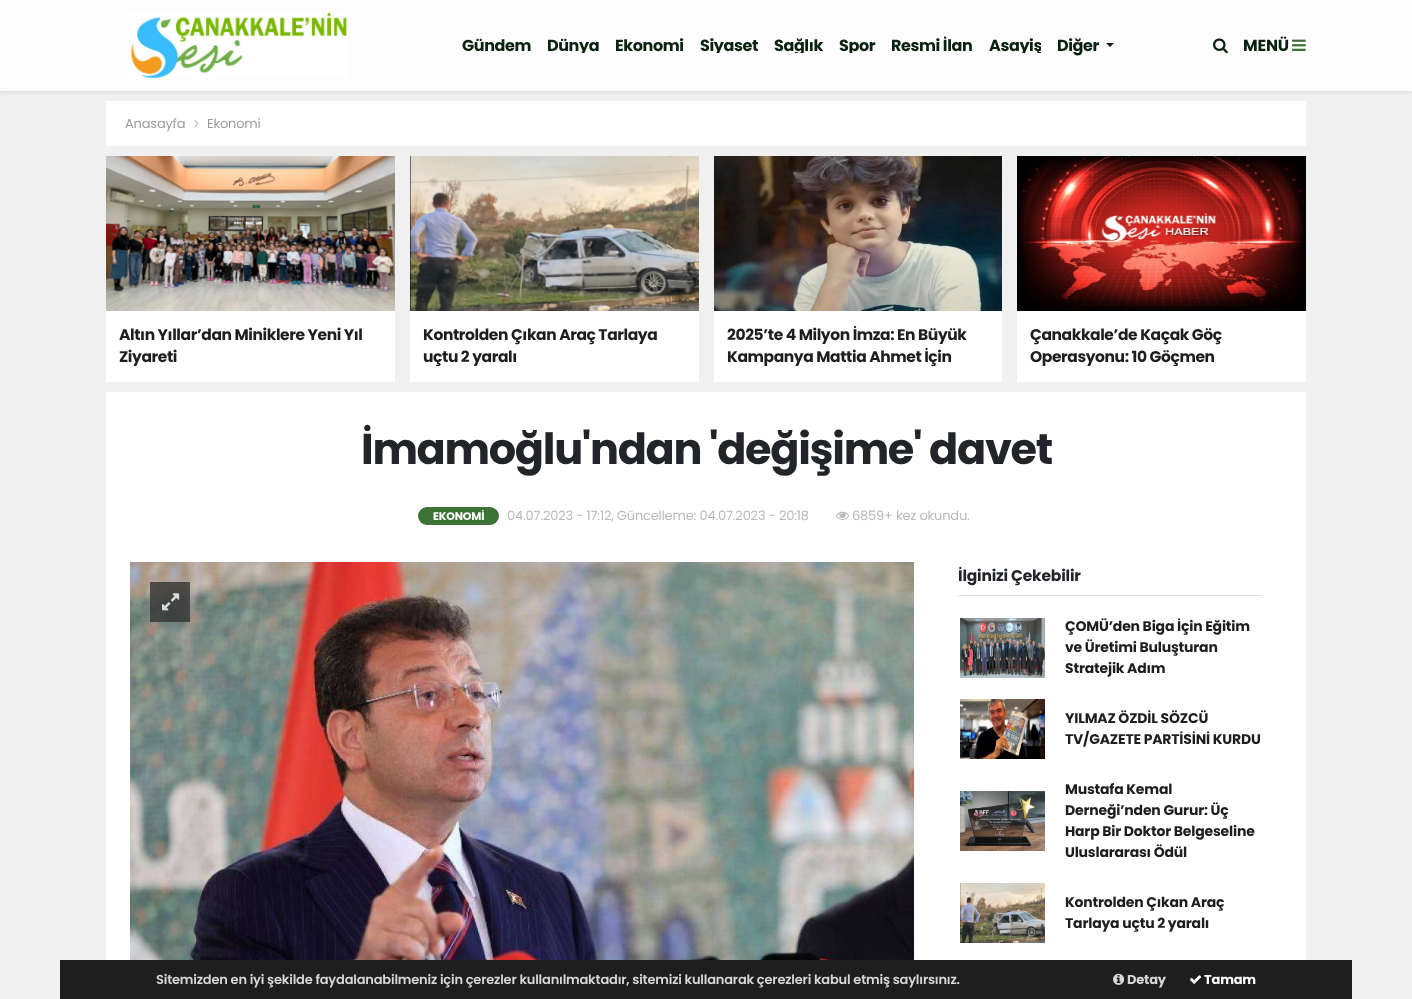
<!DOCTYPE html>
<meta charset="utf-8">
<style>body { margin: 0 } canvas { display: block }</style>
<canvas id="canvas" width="1412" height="999"></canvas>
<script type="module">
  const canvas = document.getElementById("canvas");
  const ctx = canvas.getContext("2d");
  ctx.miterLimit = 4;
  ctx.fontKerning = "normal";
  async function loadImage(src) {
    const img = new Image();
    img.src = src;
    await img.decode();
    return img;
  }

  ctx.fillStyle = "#f0f0f0";
  ctx.fillRect(0, 0, 1412, 999);
  ctx.fillStyle = "rgba(0, 0, 0, 0.15)";
  ctx.filter = "blur(2.5px)";
  ctx.beginPath();
  ctx.rect(0, 0, 1412, 91);
  ctx.fill();
  ctx.filter = "none";
  ctx.fillStyle = "#fdfdfd";
  ctx.fillRect(0, 0, 1412, 91);
  ctx.drawImage(await loadImage("img1.png"), 130, 13, 218, 65);
  ctx.letterSpacing = "-0.4px";
  ctx.font = "bold 16px Poppins";
  ctx.fillStyle = "#09210e";
  ctx.fillText("Gündem", 462, 51);
  ctx.save();
  ctx.beginPath();
  ctx.rect(446, 33, 595, 20);
  ctx.clip();
  ctx.fillText("Dünya", 547, 51);
  ctx.restore();
  ctx.fillText("Ekonomi", 615, 51);
  ctx.save();
  ctx.beginPath();
  ctx.rect(446, 33, 595, 20);
  ctx.clip();
  ctx.fillText("Siyaset", 700, 51);
  ctx.fillText("Sağlık", 774, 51);
  ctx.fillText("Spor", 839, 51);
  ctx.restore();
  ctx.fillText("Resmi İlan", 891, 51);
  ctx.save();
  ctx.beginPath();
  ctx.rect(446, 33, 595, 20);
  ctx.clip();
  ctx.fillText("Asayiş", 989, 51);
  ctx.restore();
  ctx.fillText("Diğer", 1057, 51);
  ctx.beginPath();
  ctx.moveTo(1106, 43);
  ctx.lineTo(1114, 43);
  ctx.lineTo(1110, 47);
  ctx.closePath();
  ctx.fill();
  ctx.drawImage(await loadImage("img2.png"), 1213, 38, 15, 16);
  ctx.letterSpacing = "-0.19px";
  ctx.fillText("MENÜ", 1243, 51);
  ctx.drawImage(await loadImage("img3.png"), 1292, 39, 14, 12);
  ctx.fillStyle = "#ffffff";
  ctx.fillRect(106, 101, 1200, 45);
  ctx.font = "13px Poppins";
  ctx.fillStyle = "#9b9b9b";
  ctx.fillText("Anasayfa", 125, 128);
  ctx.drawImage(await loadImage("img4.png"), 194, 119, 5, 9);
  ctx.fillText("Ekonomi", 207, 128);
  ctx.fillStyle = "#ffffff";
  ctx.fillRect(106, 311, 289, 71);
  ctx.drawImage(await loadImage("img5.png"), 106, 156, 289, 155);
  ctx.letterSpacing = "-0.4px";
  ctx.font = "bold 15.5px Poppins";
  ctx.fillStyle = "#1e1e1e";
  ctx.fillText("Altın Yıllar’dan Miniklere Yeni Yıl", 119, 340);
  ctx.fillText("Ziyareti", 119, 362);
  ctx.fillStyle = "#ffffff";
  ctx.fillRect(410, 311, 289, 71);
  ctx.drawImage(await loadImage("img6.png"), 410, 156, 289, 155);
  ctx.fillStyle = "#1e1e1e";
  ctx.fillText("Kontrolden Çıkan Araç Tarlaya", 423, 340);
  ctx.save();
  ctx.beginPath();
  ctx.rect(410, 311, 289, 55);
  ctx.clip();
  ctx.fillText("uçtu 2 yaralı", 423, 362);
  ctx.restore();
  ctx.fillStyle = "#ffffff";
  ctx.fillRect(714, 311, 288, 71);
  ctx.drawImage(await loadImage("img7.png"), 714, 156, 288, 155);
  ctx.fillStyle = "#1e1e1e";
  ctx.fillText("2025’te 4 Milyon İmza: En Büyük", 727, 340);
  ctx.save();
  ctx.beginPath();
  ctx.rect(714, 311, 288, 55);
  ctx.clip();
  ctx.fillText("Kampanya Mattia Ahmet İçin", 727, 362);
  ctx.restore();
  ctx.fillStyle = "#ffffff";
  ctx.fillRect(1017, 311, 289, 71);
  ctx.drawImage(await loadImage("img8.png"), 1017, 156, 289, 155);
  ctx.fillStyle = "#1e1e1e";
  ctx.fillText("Çanakkale’de Kaçak Göç", 1030, 340);
  ctx.save();
  ctx.beginPath();
  ctx.rect(1017, 311, 289, 55);
  ctx.clip();
  ctx.fillText("Operasyonu: 10 Göçmen", 1030, 362);
  ctx.restore();
  ctx.fillStyle = "#ffffff";
  ctx.fillRect(106, 392, 1200, 568);
  ctx.letterSpacing = "-1.3px";
  ctx.font = "bold 43px Poppins";
  ctx.fillStyle = "#212529";
  ctx.fillText("İmamoğlu'ndan 'değişime' davet", 361, 464);
  ctx.fillStyle = "#3e7337";
  ctx.beginPath();
  ctx.roundRect(418, 507, 81, 18, 9);
  ctx.fill();
  ctx.letterSpacing = "-0.19px";
  ctx.font = "bold 11px Poppins";
  ctx.fillStyle = "#ffffff";
  ctx.fillText("EKONOMİ", 433, 520);
  ctx.font = "13px Poppins";
  ctx.fillStyle = "#b9b9b9";
  ctx.fillText("04.07.2023 - 17:12, Güncelleme: 04.07.2023 - 20:18", 507, 520);
  ctx.drawImage(await loadImage("img9.png"), 836, 511, 13, 9);
  ctx.fillText("6859+ kez okundu.", 852, 520);
  ctx.drawImage(await loadImage("img10.png"), 130, 562, 784, 398);
  ctx.fillStyle = "rgba(51, 51, 51, 0.8)";
  ctx.fillRect(150, 582, 40, 40);
  ctx.drawImage(await loadImage("img11.png"), 162, 593, 18, 18);
  ctx.fillStyle = "#dee2e6";
  ctx.fillRect(958, 595, 304, 1);
  ctx.font = "bold 15.5px Poppins";
  ctx.fillStyle = "#212529";
  ctx.fillText("İlginizi Çekebilir", 958, 581);
  ctx.drawImage(await loadImage("img12.png"), 960, 618, 85, 60);
  ctx.font = "bold 14px Poppins";
  ctx.fillStyle = "#1e1e1e";
  ctx.fillText("ÇOMÜ’den Biga İçin Eğitim", 1065, 631);
  ctx.fillText("ve Üretimi Buluşturan", 1065, 652);
  ctx.fillText("Stratejik Adım", 1065, 673);
  ctx.drawImage(await loadImage("img13.png"), 960, 699, 85, 60);
  ctx.fillText("YILMAZ ÖZDİL SÖZCÜ", 1065, 723);
  ctx.fillText("TV/GAZETE PARTİSİNİ KURDU", 1065, 744);
  ctx.drawImage(await loadImage("img14.png"), 960, 791, 85, 60);
  ctx.fillText("Mustafa Kemal", 1065, 794);
  ctx.fillText("Derneği’nden Gurur: Üç", 1065, 815);
  ctx.fillText("Harp Bir Doktor Belgeseline", 1065, 836);
  ctx.fillText("Uluslararası Ödül", 1065, 857);
  ctx.drawImage(await loadImage("img15.png"), 960, 883, 85, 60);
  ctx.fillText("Kontrolden Çıkan Araç", 1065, 907);
  ctx.fillText("Tarlaya uçtu 2 yaralı", 1065, 928);
  ctx.fillRect(60, 960, 1292, 39);
  ctx.font = "600 13px Poppins";
  ctx.fillStyle = "#d7d7d7";
  ctx.fillText("Sitemizden en iyi şekilde faydalanabilmeniz için çerezler kullanılmaktadır, sitemizi kullanarak çerezleri kabul etmiş saylırsınız.", 156, 984);
  ctx.drawImage(await loadImage("img16.png"), 1113, 973, 12, 12);
  ctx.font = "bold 13px Poppins";
  ctx.fillText("Detay", 1127, 984);
  ctx.drawImage(await loadImage("img17.png"), 1189, 975, 13, 9);
  ctx.fillStyle = "#ffffff";
  ctx.fillText("Tamam", 1204, 984);
</script>
